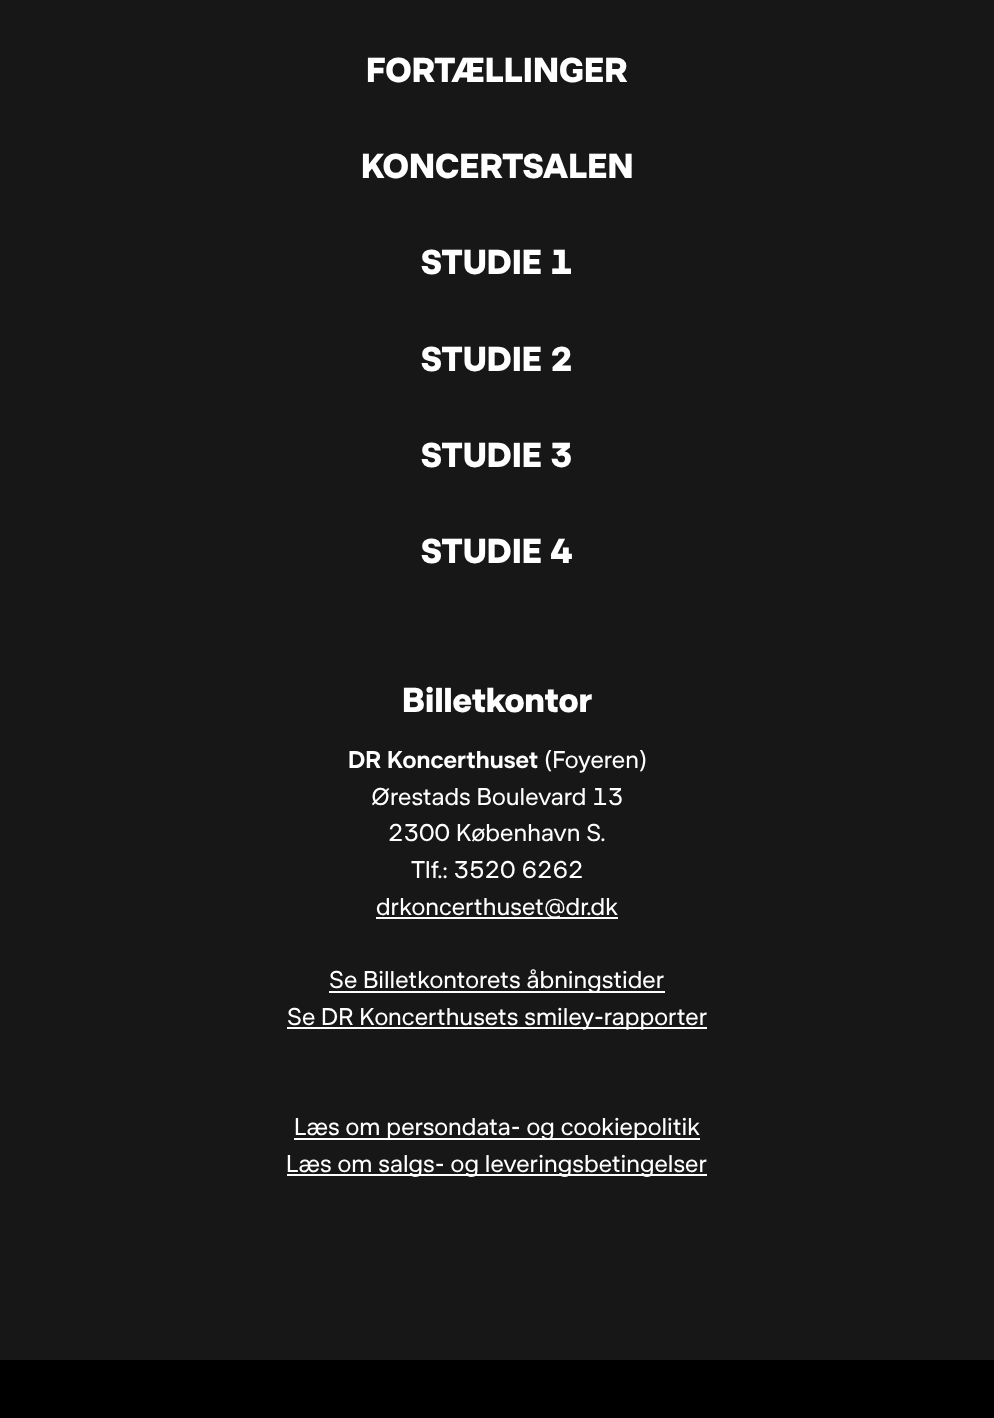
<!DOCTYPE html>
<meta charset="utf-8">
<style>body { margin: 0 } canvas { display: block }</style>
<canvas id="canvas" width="994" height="1418"></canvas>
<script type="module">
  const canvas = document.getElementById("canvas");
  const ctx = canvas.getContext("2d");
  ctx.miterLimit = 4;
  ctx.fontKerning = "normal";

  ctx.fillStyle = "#171717";
  ctx.fillRect(0, 0, 994, 1418);
  ctx.font = "bold 35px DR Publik";
  ctx.fillStyle = "#ffffff";
  ctx.fillText("FORTÆLLINGER", 366, 82);
  ctx.fillText("KONCERTSALEN", 361, 178);
  ctx.fillText("STUDIE 1", 421, 274);
  ctx.fillText("STUDIE 2", 421, 371);
  ctx.fillText("STUDIE 3", 421, 467);
  ctx.fillText("STUDIE 4", 421, 563);
  ctx.fillText("Billetkontor", 402, 712);
  ctx.font = "600 24.5px DR Publik";
  ctx.fillText("DR Koncerthuset", 348, 768);
  ctx.font = "24.5px DR Publik";
  ctx.fillText("(Foyeren)", 545, 768);
  ctx.fillText("Ørestads Boulevard 13", 371, 805);
  ctx.fillText("2300 København S.", 388, 841);
  ctx.fillText("Tlf.: 3520 6262", 411, 878);
  ctx.fillRect(376, 917, 242, 2);
  ctx.fillText("drkoncerthuset@dr.dk", 376, 915);
  ctx.fillRect(329, 991, 336, 2);
  ctx.fillText("Se Billetkontorets åbningstider", 329, 988);
  ctx.fillRect(287, 1027, 420, 2);
  ctx.fillText("Se DR Koncerthusets smiley-rapporter", 287, 1025);
  ctx.fillRect(294, 1138, 406, 2);
  ctx.fillText("Læs om persondata- og cookiepolitik", 294, 1135);
  ctx.fillRect(287, 1174, 420, 2);
  ctx.fillText("Læs om salgs- og leveringsbetingelser", 286, 1172);
  ctx.fillStyle = "#000000";
  ctx.fillRect(0, 1360, 994, 58);
</script>
